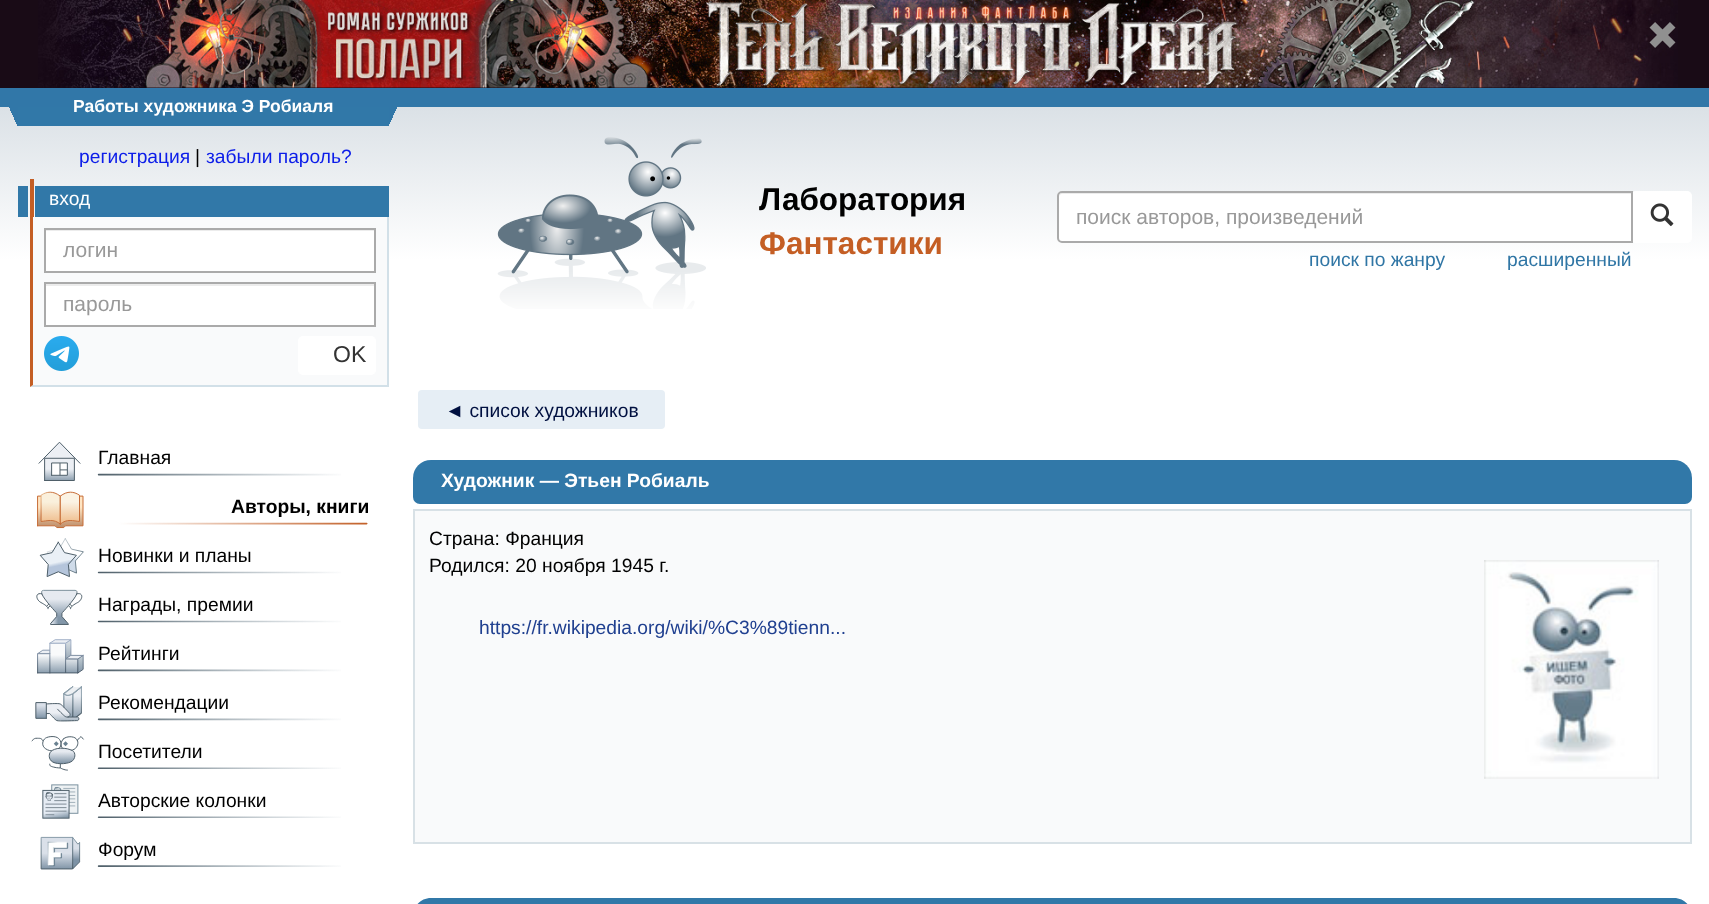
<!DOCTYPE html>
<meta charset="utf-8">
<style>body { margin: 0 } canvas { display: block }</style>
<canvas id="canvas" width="1709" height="904"></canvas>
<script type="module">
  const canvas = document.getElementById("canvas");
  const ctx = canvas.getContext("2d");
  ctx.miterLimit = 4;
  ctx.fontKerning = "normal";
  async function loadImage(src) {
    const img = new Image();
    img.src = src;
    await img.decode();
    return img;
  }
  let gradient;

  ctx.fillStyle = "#190b16";
  ctx.fillRect(0, 0, 1709, 904);
  ctx.drawImage(await loadImage("img1.png"), 38, 0, 1640, 88);
  ctx.drawImage(await loadImage("img2.png"), 1649, 22, 27, 26);
  gradient = ctx.createLinearGradient(855, 87, 855, 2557);
  gradient.addColorStop(0, "#d6dde3");
  gradient.addColorStop(0.07, "#ffffff");
  ctx.fillStyle = gradient;
  ctx.fillRect(0, 107, 1709, 797);
  ctx.fillStyle = "#3177a8";
  ctx.fillRect(0, 88, 1709, 19);
  gradient = ctx.createLinearGradient(-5.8, 113, 23, 100);
  gradient.addColorStop(0, "rgba(0, 0, 0, 0)");
  gradient.addColorStop(0.5, "rgba(49, 119, 168, 0)");
  gradient.addColorStop(0.5, "#3177a8");
  gradient.addColorStop(1, "#3177a8");
  ctx.fillStyle = gradient;
  ctx.fillRect(9, 107, 9, 19);
  ctx.fillStyle = "#3178a8";
  ctx.fillRect(18, 107, 371, 19);
  ctx.font = "bold 17.5px Liberation Sans";
  ctx.fillStyle = "#ffffff";
  ctx.fillText("Работы художника Э Робиаля", 73, 112);
  gradient = ctx.createLinearGradient(412, 113, 383, 100);
  gradient.addColorStop(0, "rgba(0, 0, 0, 0)");
  gradient.addColorStop(0.5, "rgba(49, 119, 168, 0)");
  gradient.addColorStop(0.5, "#3177a8");
  gradient.addColorStop(1, "#3177a8");
  ctx.fillStyle = gradient;
  ctx.fillRect(389, 107, 8, 17);
  ctx.font = "19.25px Liberation Sans";
  ctx.fillStyle = "#0c1de9";
  ctx.fillText("регистрация", 79, 163);
  ctx.fillStyle = "#000000";
  ctx.fillText("|", 195, 163);
  ctx.fillStyle = "#0c1de9";
  ctx.fillText("забыли пароль?", 206, 163);
  ctx.fillStyle = "#3178a8";
  ctx.fillRect(18, 186, 10, 31);
  ctx.fillStyle = "#c45e24";
  ctx.fillRect(30, 179, 4, 38);
  ctx.fillStyle = "#3178a8";
  ctx.fillRect(35, 186, 354, 31);
  ctx.fillStyle = "#ffffff";
  ctx.fillText("вход", 49, 205);
  ctx.fillStyle = "#f9fafb";
  ctx.fillRect(30, 217, 357, 170);
  ctx.fillStyle = "#d2e0e8";
  ctx.fillRect(387, 217, 2, 170);
  ctx.beginPath();
  ctx.moveTo(388, 387);
  ctx.lineTo(30, 387);
  ctx.lineTo(33, 385);
  ctx.lineTo(387, 385);
  ctx.closePath();
  ctx.fill();
  ctx.fillStyle = "#c45e24";
  ctx.beginPath();
  ctx.moveTo(30, 387);
  ctx.lineTo(30, 217);
  ctx.lineTo(33, 217);
  ctx.lineTo(33, 385);
  ctx.closePath();
  ctx.fill();
  ctx.fillStyle = "#ffffff";
  ctx.fillRect(46, 231, 328, 40);
  ctx.fillStyle = "#ececec";
  ctx.fillRect(46, 230, 329, 1);
  ctx.strokeStyle = "#aaaaaa";
  ctx.lineWidth = 2;
  ctx.strokeRect(45, 229, 330, 43);
  ctx.font = "21px Liberation Sans";
  ctx.fillStyle = "#999999";
  ctx.fillText("логин", 63, 257);
  ctx.fillStyle = "#ffffff";
  ctx.fillRect(46, 286, 328, 39);
  ctx.fillStyle = "#ececec";
  ctx.fillRect(46, 284, 329, 2);
  ctx.strokeRect(45, 283, 330, 43);
  ctx.fillStyle = "#999999";
  ctx.fillText("пароль", 63, 311);
  ctx.drawImage(await loadImage("img3.png"), 44, 336, 35, 35);
  ctx.fillStyle = "#ffffff";
  ctx.beginPath();
  ctx.roundRect(298, 336, 78, 39, 5);
  ctx.fill();
  ctx.font = "23px Liberation Sans";
  ctx.fillStyle = "#333333";
  ctx.fillText("OK", 333, 362);
  ctx.drawImage(await loadImage("img4.png"), 497, 137, 209, 172);
  ctx.font = "bold 31.5px Liberation Sans";
  ctx.fillStyle = "#000000";
  ctx.fillText("Лаборатория", 759, 210);
  ctx.fillStyle = "#c45e24";
  ctx.fillText("Фантастики", 759, 254);
  ctx.fillStyle = "#ffffff";
  ctx.beginPath();
  ctx.roundRect(1631, 191, 61, 52, 5);
  ctx.fill();
  ctx.beginPath();
  ctx.roundRect(1057, 191, 576, 52, [5, 0, 0, 5]);
  ctx.fill();
  ctx.fillStyle = "#ececec";
  ctx.beginPath();
  ctx.moveTo(1062, 194);
  ctx.lineTo(1631, 194);
  ctx.lineTo(1631, 193);
  ctx.lineTo(1063, 193);
  ctx.bezierCurveTo(1060, 193, 1059, 195, 1059, 198);
  ctx.bezierCurveTo(1059, 196, 1060, 194, 1062, 194);
  ctx.closePath();
  ctx.fill();
  ctx.beginPath();
  ctx.roundRect(1058, 192, 574, 50, [4, 0, 0, 4]);
  ctx.stroke();
  ctx.font = "21px Liberation Sans";
  ctx.fillStyle = "#999999";
  ctx.fillText("поиск авторов, произведений", 1076, 224);
  ctx.drawImage(await loadImage("img5.png"), 1650, 203, 24, 24);
  ctx.font = "19.25px Liberation Sans";
  ctx.fillStyle = "#3076a5";
  ctx.fillText("поиск по жанру", 1309, 266);
  ctx.fillText("расширенный", 1507, 266);
  ctx.drawImage(await loadImage("img6.png"), 38, 442, 303, 39);
  ctx.fillStyle = "#000000";
  ctx.fillText("Главная", 98, 464);
  ctx.drawImage(await loadImage("img7.png"), 37, 491, 331, 38);
  ctx.font = "bold 19.25px Liberation Sans";
  ctx.fillText("Авторы, книги", 231, 513);
  ctx.drawImage(await loadImage("img8.png"), 39, 538, 302, 40);
  ctx.font = "19.25px Liberation Sans";
  ctx.fillText("Новинки и планы", 98, 562);
  ctx.drawImage(await loadImage("img9.png"), 36, 589, 305, 36);
  ctx.fillText("Награды, премии", 98, 611);
  ctx.drawImage(await loadImage("img10.png"), 37, 639, 304, 35);
  ctx.fillText("Рейтинги", 98, 660);
  ctx.drawImage(await loadImage("img11.png"), 35, 686, 306, 36);
  ctx.fillText("Рекомендации", 98, 709);
  ctx.drawImage(await loadImage("img12.png"), 31, 736, 310, 35);
  ctx.fillText("Посетители", 98, 758);
  ctx.drawImage(await loadImage("img13.png"), 42, 784, 299, 35);
  ctx.fillText("Авторские колонки", 98, 807);
  ctx.drawImage(await loadImage("img14.png"), 40, 836, 301, 34);
  ctx.fillText("Форум", 98, 856);
  ctx.fillStyle = "#e6eef5";
  ctx.beginPath();
  ctx.roundRect(418, 390, 247, 39, 4);
  ctx.fill();
  ctx.fillStyle = "#001040";
  ctx.fillText("◄ список художников", 445, 417);
  ctx.fillStyle = "#3178a8";
  ctx.beginPath();
  ctx.roundRect(413, 460, 1279, 44, [18, 18, 7, 7]);
  ctx.fill();
  ctx.font = "bold 19.25px Liberation Sans";
  ctx.fillStyle = "#ffffff";
  ctx.fillText("Художник — Этьен Робиаль", 441, 487);
  ctx.fillStyle = "#f9fafb";
  ctx.beginPath();
  ctx.rect(414, 510, 1277, 333);
  ctx.fill();
  ctx.strokeStyle = "#d8e1e6";
  ctx.stroke();
  ctx.font = "19.25px Liberation Sans";
  ctx.fillStyle = "#000000";
  ctx.fillText("Страна: Франция", 429, 545);
  ctx.fillText("Родился: 20 ноября 1945 г.", 429, 572);
  ctx.fillStyle = "#204090";
  ctx.fillText("https://fr.wikipedia.org/wiki/%C3%89tienn...", 479, 634);
  ctx.drawImage(await loadImage("img15.png"), 1484, 560, 175, 219);
  ctx.fillStyle = "#3178a8";
  ctx.beginPath();
  ctx.moveTo(431, 898);
  ctx.lineTo(1674, 898);
  ctx.bezierCurveTo(1684, 898, 1692, 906, 1692, 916);
  ctx.lineTo(1692, 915);
  ctx.bezierCurveTo(1692, 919, 1689, 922, 1685, 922);
  ctx.lineTo(420, 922);
  ctx.bezierCurveTo(416, 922, 413, 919, 413, 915);
  ctx.lineTo(413, 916);
  ctx.bezierCurveTo(413, 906, 421, 898, 431, 898);
  ctx.closePath();
  ctx.fill();
</script>
